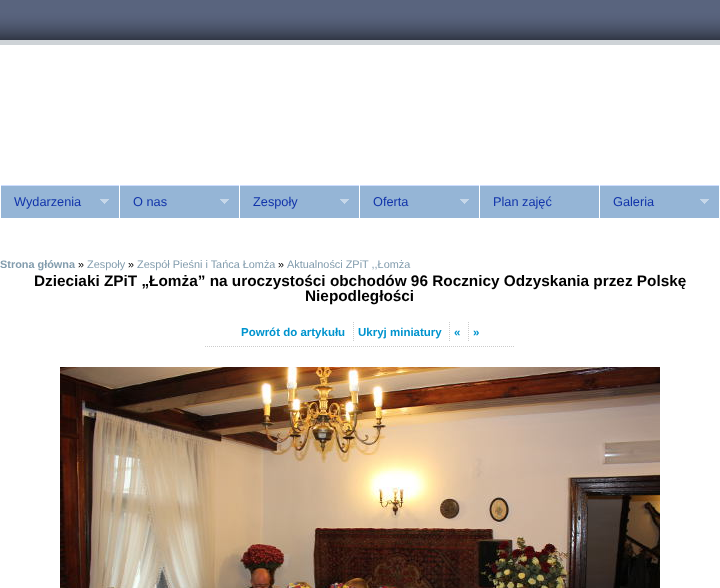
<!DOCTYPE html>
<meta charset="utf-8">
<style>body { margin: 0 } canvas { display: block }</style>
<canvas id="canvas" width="720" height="588"></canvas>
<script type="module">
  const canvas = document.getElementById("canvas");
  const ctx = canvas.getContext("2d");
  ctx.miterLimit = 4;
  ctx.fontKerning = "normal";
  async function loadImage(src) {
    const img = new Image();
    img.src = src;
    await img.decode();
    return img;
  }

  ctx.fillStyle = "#ffffff";
  ctx.fillRect(0, 0, 720, 588);
  ctx.drawImage(await loadImage("img1.png"), 0, 0, 720, 45);
  ctx.fillStyle = "#95b5d6";
  ctx.fillRect(1, 186, 118, 32);
  ctx.fillStyle = "#cfdeff";
  ctx.fillRect(0, 185, 719, 1);
  ctx.fillStyle = "#ffffff";
  ctx.fillRect(0, 185, 1, 1);
  ctx.font = "12.75px Liberation Sans";
  ctx.fillStyle = "#1133aa";
  ctx.fillText("Wydarzenia", 14, 206);
  ctx.drawImage(await loadImage("img2.png"), 100, 199, 9, 5);
  ctx.fillStyle = "#95b5d6";
  ctx.fillRect(120, 186, 119, 32);
  ctx.fillStyle = "#ffffff";
  ctx.fillRect(119, 185, 1, 1);
  ctx.fillStyle = "#1133aa";
  ctx.fillText("O nas", 133, 206);
  ctx.drawImage(await loadImage("img2.png"), 220, 199, 9, 5);
  ctx.fillStyle = "#95b5d6";
  ctx.fillRect(240, 186, 119, 32);
  ctx.fillStyle = "#ffffff";
  ctx.fillRect(239, 185, 1, 1);
  ctx.fillStyle = "#1133aa";
  ctx.fillText("Zespoły", 253, 206);
  ctx.drawImage(await loadImage("img2.png"), 340, 199, 9, 5);
  ctx.fillStyle = "#95b5d6";
  ctx.fillRect(360, 186, 119, 32);
  ctx.fillStyle = "#ffffff";
  ctx.fillRect(359, 185, 1, 1);
  ctx.fillStyle = "#1133aa";
  ctx.fillText("Oferta", 373, 206);
  ctx.drawImage(await loadImage("img2.png"), 460, 199, 9, 5);
  ctx.fillStyle = "#95b5d6";
  ctx.fillRect(480, 186, 119, 32);
  ctx.fillStyle = "#ffffff";
  ctx.fillRect(479, 185, 1, 1);
  ctx.fillStyle = "#1133aa";
  ctx.fillText("Plan zajęć", 493, 206);
  ctx.fillStyle = "#95b5d6";
  ctx.fillRect(600, 186, 119, 32);
  ctx.fillStyle = "#ffffff";
  ctx.fillRect(599, 185, 1, 1);
  ctx.fillStyle = "#1133aa";
  ctx.fillText("Galeria", 613, 206);
  ctx.drawImage(await loadImage("img2.png"), 700, 199, 9, 5);
  ctx.font = "bold 10.9px Liberation Sans";
  ctx.fillStyle = "#829cad";
  ctx.fillText("Strona główna", 0, 268);
  ctx.font = "10.9px Liberation Sans";
  ctx.fillStyle = "#000000";
  ctx.fillText("»", 78, 268);
  ctx.fillStyle = "#829cad";
  ctx.fillText("Zespoły", 87, 268);
  ctx.fillStyle = "#000000";
  ctx.fillText("»", 128, 268);
  ctx.fillStyle = "#829cad";
  ctx.fillText("Zespół Pieśni i Tańca Łomża", 137, 268);
  ctx.fillStyle = "#000000";
  ctx.fillText("»", 278, 268);
  ctx.fillStyle = "#829cad";
  ctx.fillText("Aktualności ZPiT ,,Łomża", 287, 268);
  ctx.font = "bold 15.35px Liberation Sans";
  ctx.fillStyle = "#000000";
  ctx.fillText("Dzieciaki ZPiT „Łomża” na uroczystości obchodów 96 Rocznicy Odzyskania przez Polskę", 34, 286);
  ctx.fillText("Niepodległości", 305, 301);
  ctx.beginPath();
  ctx.moveTo(205, 346.5);
  ctx.lineTo(515, 346.5);
  ctx.strokeStyle = "#cccccc";
  ctx.setLineDash([1, 1]);
  ctx.stroke();
  ctx.font = "bold 11.5px Liberation Sans";
  ctx.fillStyle = "#0094ce";
  ctx.fillText("Powrót do artykułu", 241, 336);
  ctx.fillText("Ukryj miniatury", 358, 336);
  ctx.beginPath();
  ctx.moveTo(353.5, 322);
  ctx.lineTo(353.5, 342);
  ctx.stroke();
  ctx.fillText("«", 454, 336);
  ctx.beginPath();
  ctx.moveTo(449.5, 322);
  ctx.lineTo(449.5, 342);
  ctx.stroke();
  ctx.fillText("»", 473, 336);
  ctx.beginPath();
  ctx.moveTo(468.5, 322);
  ctx.lineTo(468.5, 342);
  ctx.stroke();
  ctx.drawImage(await loadImage("img3.png"), 60, 367, 600, 221);
</script>
